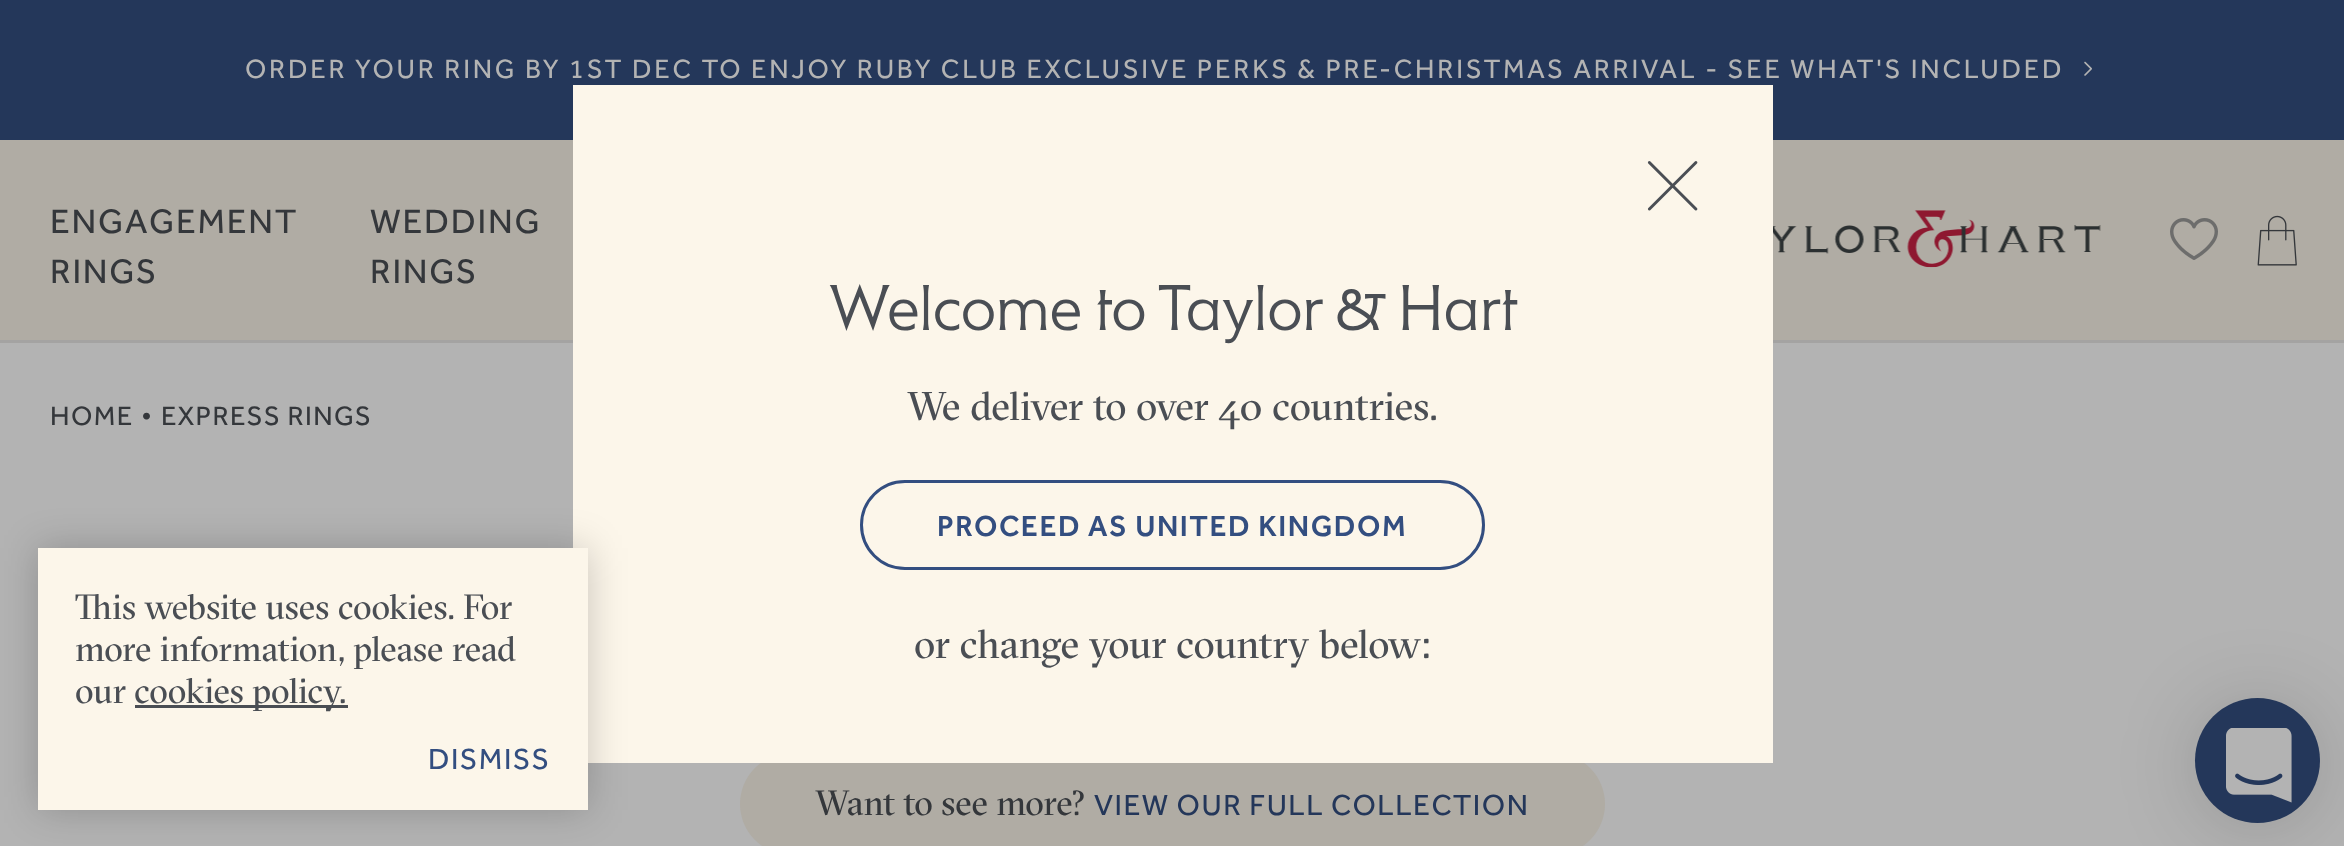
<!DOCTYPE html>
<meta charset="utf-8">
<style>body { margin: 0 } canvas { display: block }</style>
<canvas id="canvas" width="2344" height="846"></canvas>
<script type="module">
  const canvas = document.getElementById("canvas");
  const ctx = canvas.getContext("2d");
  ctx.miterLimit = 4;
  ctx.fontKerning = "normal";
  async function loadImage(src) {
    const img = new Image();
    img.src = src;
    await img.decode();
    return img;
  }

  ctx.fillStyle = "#b3b3b3";
  ctx.fillRect(0, 0, 2344, 846);
  ctx.fillStyle = "#24375a";
  ctx.fillRect(0, 0, 2344, 140);
  ctx.letterSpacing = "2.74px";
  ctx.font = "27.4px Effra";
  ctx.fillStyle = "#b3b3b3";
  ctx.fillText("ORDER YOUR RING BY 1ST DEC TO ENJOY RUBY CLUB EXCLUSIVE PERKS & PRE-CHRISTMAS ARRIVAL - SEE WHAT'S INCLUDED", 245, 78);
  ctx.drawImage(await loadImage("img1.png"), 2084, 61, 8, 15);
  ctx.fillStyle = "#b0aca4";
  ctx.fillRect(0, 140, 2344, 200);
  ctx.letterSpacing = "1.75px";
  ctx.font = "35px Effra";
  ctx.fillStyle = "#34373b";
  ctx.fillText("ENGAGEMENT", 50, 233);
  ctx.fillText("RINGS", 50, 283);
  ctx.fillText("WEDDING", 370, 233);
  ctx.fillText("RINGS", 370, 283);
  ctx.drawImage(await loadImage("img2.png"), 1773, 210, 328, 58);
  ctx.drawImage(await loadImage("img3.png"), 2170, 218, 48, 42);
  ctx.drawImage(await loadImage("img4.png"), 2257, 215, 40, 51);
  ctx.fillStyle = "#a4a3a2";
  ctx.fillRect(0, 340, 2344, 3);
  ctx.fillStyle = "#b0aca4";
  ctx.beginPath();
  ctx.roundRect(740, 753, 865, 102, 51);
  ctx.fill();
  ctx.fillStyle = "#fcf6ea";
  ctx.fillRect(573, 85, 1200, 678);
  ctx.drawImage(await loadImage("img5.png"), 1647, 161, 51, 50);
  ctx.letterSpacing = "0px";
  ctx.font = "60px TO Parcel";
  ctx.fillStyle = "#4a4e54";
  ctx.fillText("Welcome to Taylor & Hart", 829, 330);
  ctx.font = "40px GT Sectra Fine";
  ctx.fillText("We deliver to over 40 countries.", 907, 420);
  ctx.beginPath();
  ctx.roundRect(861.5, 481.5, 622, 87, 43.5);
  ctx.strokeStyle = "#334e80";
  ctx.lineWidth = 3;
  ctx.stroke();
  ctx.letterSpacing = "1.5px";
  ctx.font = "500 30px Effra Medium";
  ctx.fillStyle = "#334e80";
  ctx.fillText("PROCEED AS UNITED KINGDOM", 937, 536);
  ctx.letterSpacing = "0px";
  ctx.font = "40px GT Sectra Fine";
  ctx.fillStyle = "#4a4e54";
  ctx.fillText("or change your country below:", 914, 658);
  ctx.fillStyle = "rgba(0, 0, 0, 0.2)";
  ctx.filter = "blur(19px)";
  ctx.beginPath();
  ctx.rect(38, 548, 550, 262);
  ctx.fill();
  ctx.filter = "none";
  ctx.fillStyle = "#fcf6ea";
  ctx.fillRect(38, 548, 550, 262);
  ctx.font = "35px GT Sectra Fine";
  ctx.fillStyle = "#4a4e54";
  ctx.fillText("This website uses cookies. For", 75, 619);
  ctx.fillText("more information, please read", 75, 661);
  ctx.fillText("our", 75, 703);
  ctx.fillRect(135, 705, 213, 3);
  ctx.fillText("cookies policy.", 134, 703);
  ctx.letterSpacing = "1.5px";
  ctx.font = "30px Effra";
  ctx.fillStyle = "#334e80";
  ctx.fillText("DISMISS", 428, 769);
  ctx.fillStyle = "rgba(0, 0, 0, 0.16)";
  ctx.filter = "blur(40px)";
  ctx.beginPath();
  ctx.roundRect(2195, 703, 125, 125, 62.5);
  ctx.fill();
  ctx.filter = "none";
  ctx.fillStyle = "#24375a";
  ctx.beginPath();
  ctx.arc(2257.5, 760.5, 62.5, 0, Math.PI * 2);
  ctx.fill();
  ctx.drawImage(await loadImage("img6.png"), 2226, 728, 66, 75);
  ctx.letterSpacing = "1.4px";
  ctx.font = "27.5px Effra";
  ctx.fillStyle = "#34373b";
  ctx.fillText("HOME", 50, 425);
  ctx.fillText("•", 141, 425);
  ctx.fillText("EXPRESS RINGS", 161, 425);
  ctx.letterSpacing = "0px";
  ctx.font = "35px GT Sectra Fine";
  ctx.fillText("Want to see more?", 815, 815);
  ctx.letterSpacing = "1.5px";
  ctx.font = "30px Effra";
  ctx.fillStyle = "#24375a";
  ctx.fillText("VIEW OUR FULL COLLECTION", 1094, 815);
</script>
